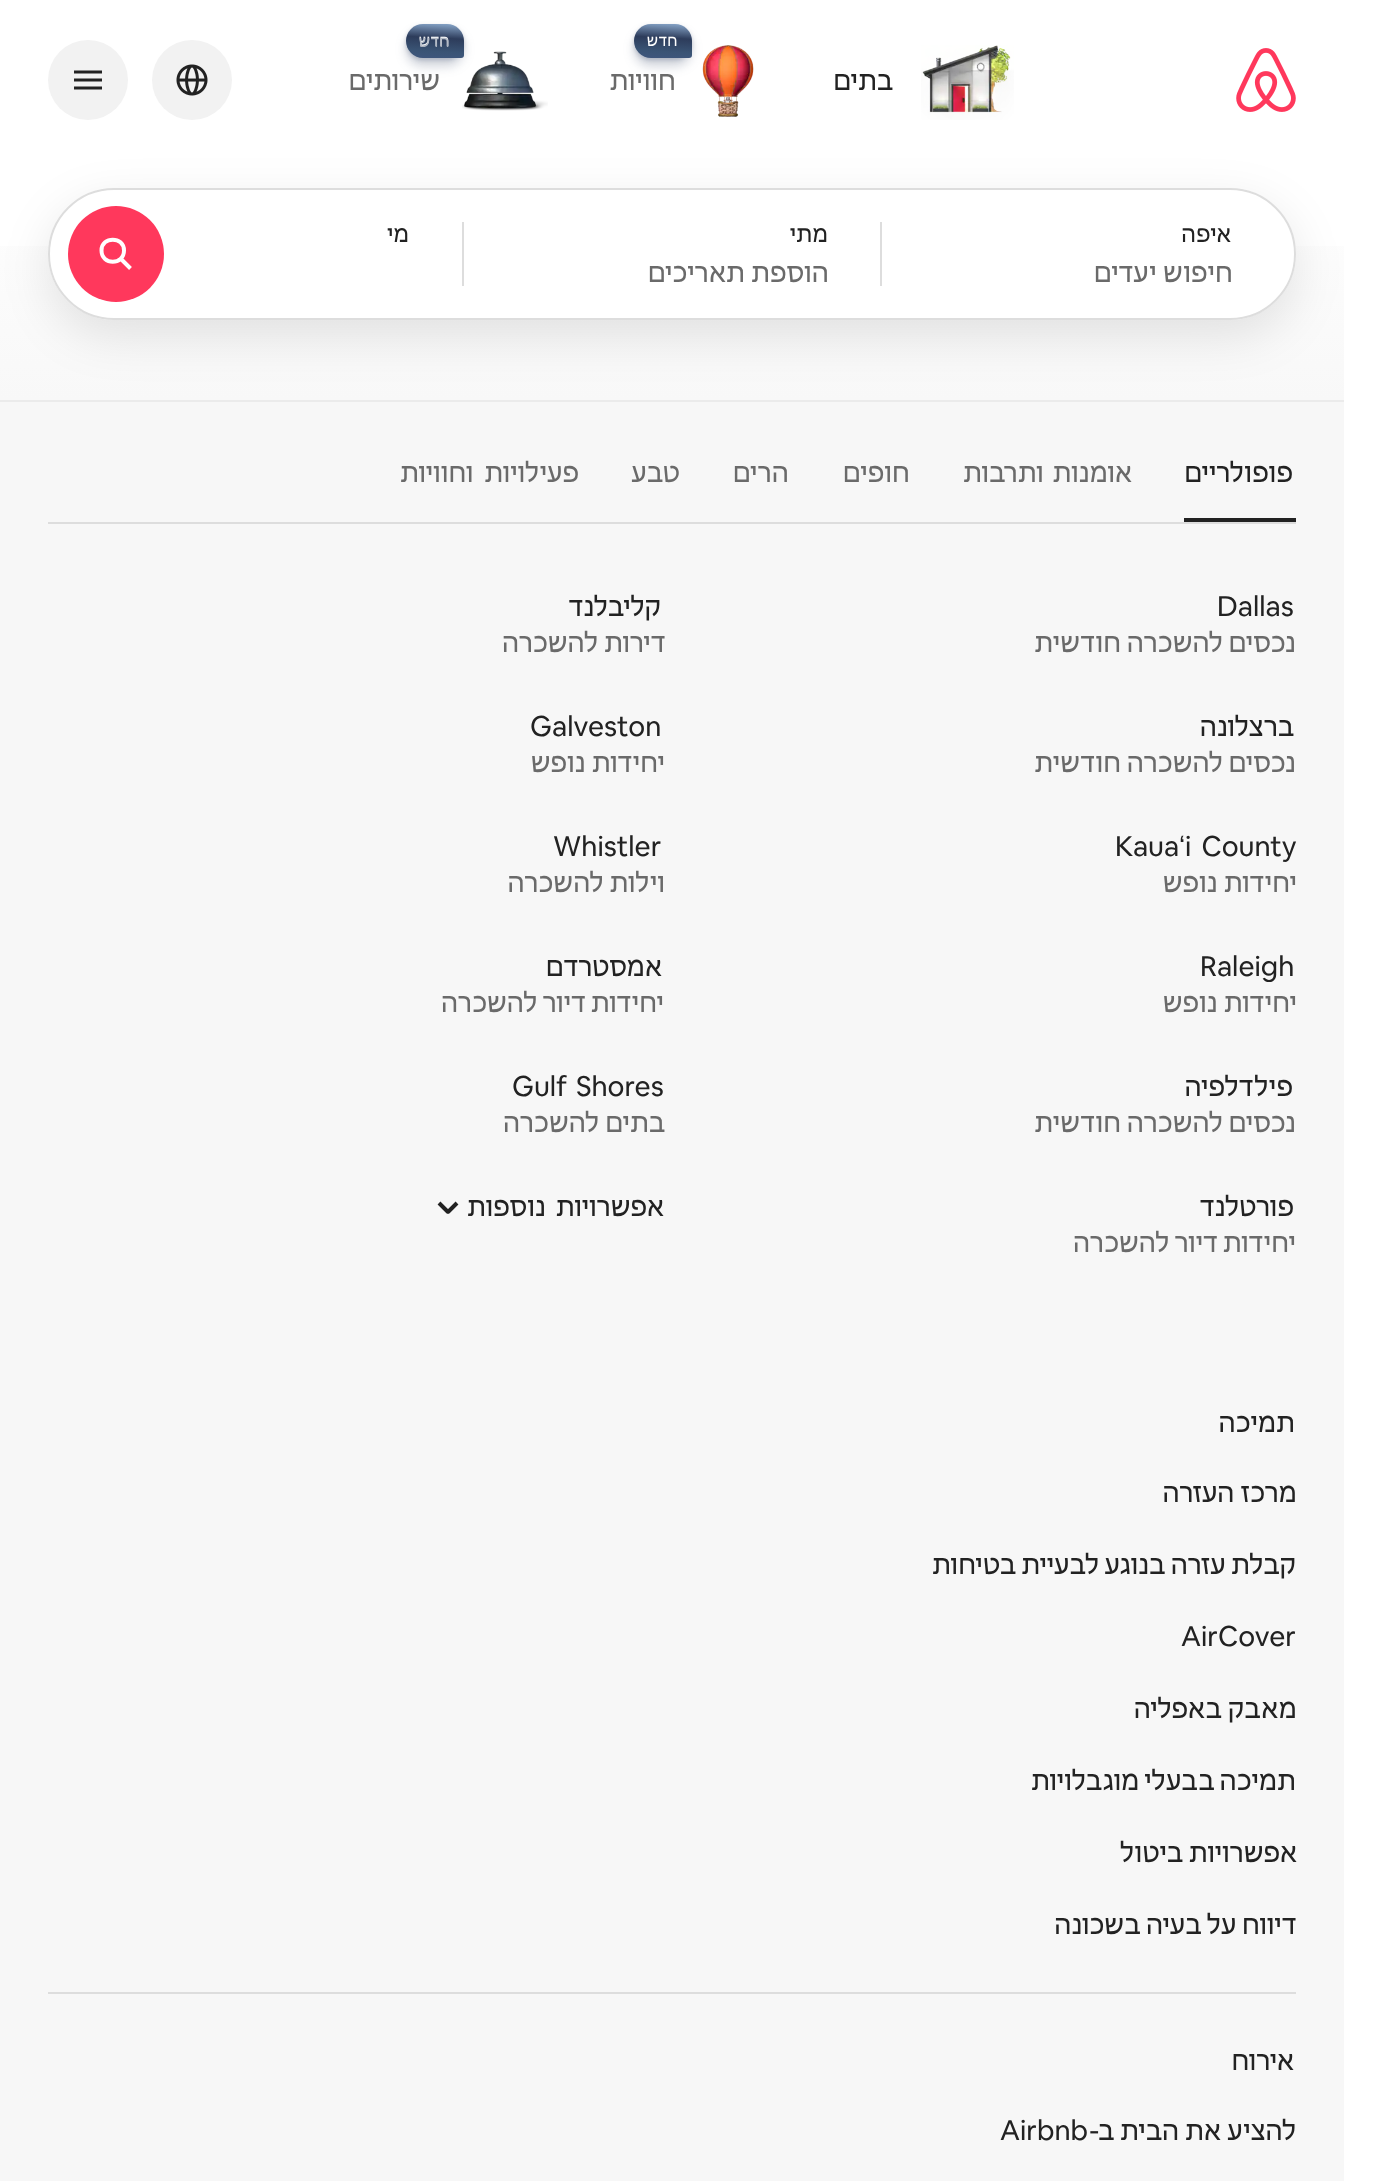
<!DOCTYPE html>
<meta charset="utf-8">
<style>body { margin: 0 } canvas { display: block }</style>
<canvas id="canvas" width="1374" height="2181"></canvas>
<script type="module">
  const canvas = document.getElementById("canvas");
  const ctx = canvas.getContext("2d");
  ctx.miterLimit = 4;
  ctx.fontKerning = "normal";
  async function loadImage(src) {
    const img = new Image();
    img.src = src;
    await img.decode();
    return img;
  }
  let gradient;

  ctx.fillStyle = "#ffffff";
  ctx.fillRect(0, 0, 1374, 2181);
  ctx.drawImage(await loadImage("img1.png"), 1236, 48, 60, 64);
  ctx.drawImage(await loadImage("img2.png"), 921, 45, 93, 75);
  ctx.direction = "rtl";
  ctx.font = "28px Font";
  ctx.fillStyle = "#222222";
  ctx.fillText("בתים", 893, 90);
  ctx.drawImage(await loadImage("img3.png"), 702, 45, 52, 72);
  ctx.fillStyle = "rgba(60, 77, 107, 0.25)";
  ctx.filter = "blur(5.5px)";
  ctx.beginPath();
  ctx.roundRect(634, 32, 58, 34, 17);
  ctx.fill();
  ctx.filter = "none";
  ctx.filter = "blur(2px)";
  ctx.beginPath();
  ctx.roundRect(634, 26, 58, 34, 17);
  ctx.fill();
  ctx.filter = "none";
  gradient = ctx.createLinearGradient(662, 59, 664, 23);
  gradient.addColorStop(0.02, "#3e567c");
  gradient.addColorStop(0.21, "#3a5475");
  gradient.addColorStop(0.59, "#2d3c5b");
  gradient.addColorStop(0.97, "#809dc0");
  ctx.fillStyle = gradient;
  ctx.beginPath();
  ctx.roundRect(634, 24, 58, 34, [17, 17, 3, 17]);
  ctx.fill();
  ctx.letterSpacing = "0.5px";
  ctx.font = "16px Font";
  ctx.fillStyle = "#ffffff";
  ctx.fillText("חדש", 678, 46);
  ctx.letterSpacing = "0px";
  ctx.font = "28px Font";
  ctx.fillStyle = "#6a6a6a";
  ctx.fillText("חוויות", 676, 90);
  ctx.drawImage(await loadImage("img4.png"), 462, 51, 86, 60);
  ctx.fillStyle = "rgba(60, 77, 107, 0.25)";
  ctx.filter = "blur(5.5px)";
  ctx.beginPath();
  ctx.roundRect(406, 32, 58, 34, 17);
  ctx.fill();
  ctx.filter = "none";
  ctx.filter = "blur(2px)";
  ctx.beginPath();
  ctx.roundRect(406, 26, 58, 34, 17);
  ctx.fill();
  ctx.filter = "none";
  gradient = ctx.createLinearGradient(434, 59, 436, 23);
  gradient.addColorStop(0.02, "#3e567c");
  gradient.addColorStop(0.21, "#3a5475");
  gradient.addColorStop(0.59, "#2d3c5b");
  gradient.addColorStop(0.97, "#809dc0");
  ctx.fillStyle = gradient;
  ctx.beginPath();
  ctx.roundRect(406, 24, 58, 34, [17, 17, 3, 17]);
  ctx.fill();
  ctx.letterSpacing = "0.5px";
  ctx.font = "16px Font";
  ctx.fillStyle = "#ffffff";
  ctx.fillText("חדש", 450, 46);
  gradient = ctx.createLinearGradient(435, 43, 435, 63);
  gradient.addColorStop(0, "#b5bcc7");
  gradient.addColorStop(0.5, "#969faf");
  ctx.fillStyle = gradient;
  ctx.fillText("חדש", 450, 47);
  ctx.letterSpacing = "0px";
  ctx.font = "28px Font";
  ctx.fillStyle = "#6a6a6a";
  ctx.fillText("שירותים", 440, 90);
  gradient = ctx.createLinearGradient(672, 0, 672, 400);
  gradient.addColorStop(0.4, "#ffffff");
  gradient.addColorStop(1, "#f8f8f8");
  ctx.fillStyle = gradient;
  ctx.fillRect(0, 246, 1344, 154);
  ctx.fillStyle = "#ffffff";
  ctx.beginPath();
  ctx.roundRect(48, 188, 1248, 132, 66);
  ctx.fill();
  ctx.fillStyle = "#ebebeb";
  ctx.fillRect(0, 400, 1344, 2);
  ctx.fillStyle = "#f7f7f7";
  ctx.fillRect(0, 402, 1344, 1779);
  ctx.save();
  ctx.beginPath();
  ctx.moveTo(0, 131);
  ctx.lineTo(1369, 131);
  ctx.lineTo(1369, 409);
  ctx.lineTo(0, 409);
  ctx.closePath();
  ctx.moveTo(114, 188);
  ctx.lineTo(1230, 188);
  ctx.bezierCurveTo(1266.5, 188, 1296, 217.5, 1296, 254);
  ctx.bezierCurveTo(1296, 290.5, 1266.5, 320, 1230, 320);
  ctx.lineTo(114, 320);
  ctx.bezierCurveTo(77.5, 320, 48, 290.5, 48, 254);
  ctx.bezierCurveTo(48, 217.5, 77.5, 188, 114, 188);
  ctx.closePath();
  ctx.clip("evenodd");
  ctx.fillStyle = "rgba(0, 0, 0, 0.1)";
  ctx.filter = "blur(24px)";
  ctx.beginPath();
  ctx.roundRect(48, 204, 1248, 132, 66);
  ctx.fill();
  ctx.filter = "none";
  ctx.restore();
  ctx.beginPath();
  ctx.roundRect(49, 189, 1246, 130, 65);
  ctx.strokeStyle = "#dddddd";
  ctx.lineWidth = 2;
  ctx.stroke();
  ctx.font = "24px Font";
  ctx.fillStyle = "#222222";
  ctx.fillText("איפה", 1231, 242);
  ctx.font = "28px Font";
  ctx.fillStyle = "#6a6a6a";
  ctx.fillText("חיפוש יעדים", 1233, 282);
  ctx.fillStyle = "#dddddd";
  ctx.fillRect(880, 222, 2, 64);
  ctx.font = "24px Font";
  ctx.fillStyle = "#222222";
  ctx.fillText("מתי", 828, 242);
  ctx.font = "28px Font";
  ctx.fillStyle = "#6a6a6a";
  ctx.fillText("הוספת תאריכים", 829, 282);
  ctx.fillStyle = "#dddddd";
  ctx.fillRect(462, 222, 2, 64);
  ctx.font = "24px Font";
  ctx.fillStyle = "#222222";
  ctx.fillText("מי", 409, 242);
  ctx.fillStyle = "#ff385c";
  ctx.beginPath();
  ctx.arc(116, 254, 48, 0, Math.PI * 2);
  ctx.fill();
  ctx.beginPath();
  ctx.moveTo(120.5, 258.5);
  ctx.lineTo(130.5, 268.5);
  ctx.moveTo(124, 250.5);
  ctx.bezierCurveTo(124, 265.5, 101.5, 265.5, 101.5, 250.5);
  ctx.bezierCurveTo(101.5, 236, 124, 236, 124, 250.5);
  ctx.closePath();
  ctx.strokeStyle = "#ffffff";
  ctx.lineWidth = 4;
  ctx.stroke();
  ctx.fillStyle = "#f2f2f2";
  ctx.beginPath();
  ctx.arc(192, 80, 40, 0, Math.PI * 2);
  ctx.fill();
  ctx.drawImage(await loadImage("img5.png"), 176, 64, 32, 32);
  ctx.beginPath();
  ctx.arc(88, 80, 40, 0, Math.PI * 2);
  ctx.fill();
  ctx.beginPath();
  ctx.moveTo(74, 80);
  ctx.lineTo(102, 80);
  ctx.moveTo(74, 88);
  ctx.lineTo(102, 88);
  ctx.moveTo(74, 72);
  ctx.lineTo(102, 72);
  ctx.strokeStyle = "#222222";
  ctx.lineWidth = 3;
  ctx.stroke();
  ctx.font = "28px Font";
  ctx.fillStyle = "#222222";
  ctx.fillText("פופולריים", 1293, 482);
  ctx.fillRect(1184, 518, 112, 4);
  ctx.wordSpacing = "3px";
  ctx.fillStyle = "#6a6a6a";
  ctx.fillText("אומנות ותרבות", 1132, 482);
  ctx.wordSpacing = "0px";
  ctx.fillText("חופים", 910, 482);
  ctx.fillText("הרים", 789, 482);
  ctx.fillText("טבע", 680, 482);
  ctx.wordSpacing = "5px";
  ctx.fillText("פעילויות וחוויות", 579, 482);
  ctx.fillStyle = "#dddddd";
  ctx.fillRect(48, 522, 1248, 2);
  ctx.wordSpacing = "0px";
  ctx.direction = "ltr";
  ctx.fillStyle = "#222222";
  ctx.fillText("Dallas", 1217, 616);
  ctx.wordSpacing = "-0.5px";
  ctx.direction = "rtl";
  ctx.fillStyle = "#6a6a6a";
  ctx.fillText("נכסים להשכרה חודשית", 1296, 652);
  ctx.wordSpacing = "0px";
  ctx.fillStyle = "#222222";
  ctx.fillText("קליבלנד", 661, 616);
  ctx.fillStyle = "#6a6a6a";
  ctx.fillText("דירות להשכרה", 665, 652);
  ctx.fillStyle = "#222222";
  ctx.fillText("ברצלונה", 1294, 736);
  ctx.wordSpacing = "-0.5px";
  ctx.fillStyle = "#6a6a6a";
  ctx.fillText("נכסים להשכרה חודשית", 1296, 772);
  ctx.wordSpacing = "0px";
  ctx.direction = "ltr";
  ctx.fillStyle = "#222222";
  ctx.fillText("Galveston", 530, 736);
  ctx.direction = "rtl";
  ctx.fillStyle = "#6a6a6a";
  ctx.fillText("יחידות נופש", 665, 772);
  ctx.wordSpacing = "4px";
  ctx.direction = "ltr";
  ctx.fillStyle = "#222222";
  ctx.fillText("i County", 1185, 856);
  ctx.wordSpacing = "0px";
  ctx.font = "28px Liberation Sans";
  ctx.fillText("ʻ", 1179, 856);
  ctx.font = "28px Font";
  ctx.fillText("Kaua", 1115, 856);
  ctx.direction = "rtl";
  ctx.fillStyle = "#6a6a6a";
  ctx.fillText("יחידות נופש", 1297, 892);
  ctx.direction = "ltr";
  ctx.fillStyle = "#222222";
  ctx.fillText("Whistler", 553, 856);
  ctx.direction = "rtl";
  ctx.fillStyle = "#6a6a6a";
  ctx.fillText("וילות להשכרה", 665, 892);
  ctx.direction = "ltr";
  ctx.fillStyle = "#222222";
  ctx.fillText("Raleigh", 1200, 976);
  ctx.direction = "rtl";
  ctx.fillStyle = "#6a6a6a";
  ctx.fillText("יחידות נופש", 1297, 1012);
  ctx.fillStyle = "#222222";
  ctx.fillText("אמסטרדם", 662, 976);
  ctx.wordSpacing = "-0.5px";
  ctx.fillStyle = "#6a6a6a";
  ctx.fillText("יחידות דיור להשכרה", 664, 1012);
  ctx.wordSpacing = "0px";
  ctx.fillStyle = "#222222";
  ctx.fillText("פילדלפיה", 1293, 1096);
  ctx.wordSpacing = "-0.5px";
  ctx.fillStyle = "#6a6a6a";
  ctx.fillText("נכסים להשכרה חודשית", 1296, 1132);
  ctx.wordSpacing = "3px";
  ctx.direction = "ltr";
  ctx.fillStyle = "#222222";
  ctx.fillText("Gulf Shores", 512, 1096);
  ctx.wordSpacing = "0px";
  ctx.direction = "rtl";
  ctx.fillStyle = "#6a6a6a";
  ctx.fillText("בתים להשכרה", 665, 1132);
  ctx.fillStyle = "#222222";
  ctx.fillText("פורטלנד", 1294, 1216);
  ctx.wordSpacing = "-0.5px";
  ctx.fillStyle = "#6a6a6a";
  ctx.fillText("יחידות דיור להשכרה", 1296, 1252);
  ctx.wordSpacing = "4px";
  ctx.fillStyle = "#222222";
  ctx.fillText("אפשרויות נוספות", 664, 1216);
  ctx.beginPath();
  ctx.moveTo(457, 1203);
  ctx.lineTo(448.5, 1211.5);
  ctx.bezierCurveTo(448, 1212, 448, 1212, 447.5, 1211.5);
  ctx.lineTo(439, 1203);
  ctx.lineWidth = 4;
  ctx.stroke();
  ctx.wordSpacing = "0px";
  ctx.fillText("תמיכה", 1295, 1432);
  ctx.fillText("מרכז העזרה", 1297, 1502);
  ctx.wordSpacing = "-0.5px";
  ctx.fillText("קבלת עזרה בנוגע לבעיית בטיחות", 1296, 1574);
  ctx.wordSpacing = "0px";
  ctx.direction = "ltr";
  ctx.fillText("AirCover", 1181, 1646);
  ctx.direction = "rtl";
  ctx.fillText("מאבק באפליה", 1297, 1718);
  ctx.wordSpacing = "-1px";
  ctx.fillText("תמיכה בבעלי מוגבלויות", 1296, 1790);
  ctx.wordSpacing = "0px";
  ctx.fillText("אפשרויות ביטול", 1297, 1862);
  ctx.wordSpacing = "-0.5px";
  ctx.fillText("דיווח על בעיה בשכונה", 1296, 1934);
  ctx.fillStyle = "#dddddd";
  ctx.fillRect(48, 1992, 1248, 2);
  ctx.wordSpacing = "0px";
  ctx.fillStyle = "#222222";
  ctx.fillText("אירוח", 1294, 2070);
  ctx.fillText("להציע את הבית ב-", 1296, 2140);
  ctx.direction = "ltr";
  ctx.fillText("Airbnb", 1000, 2140);
</script>
